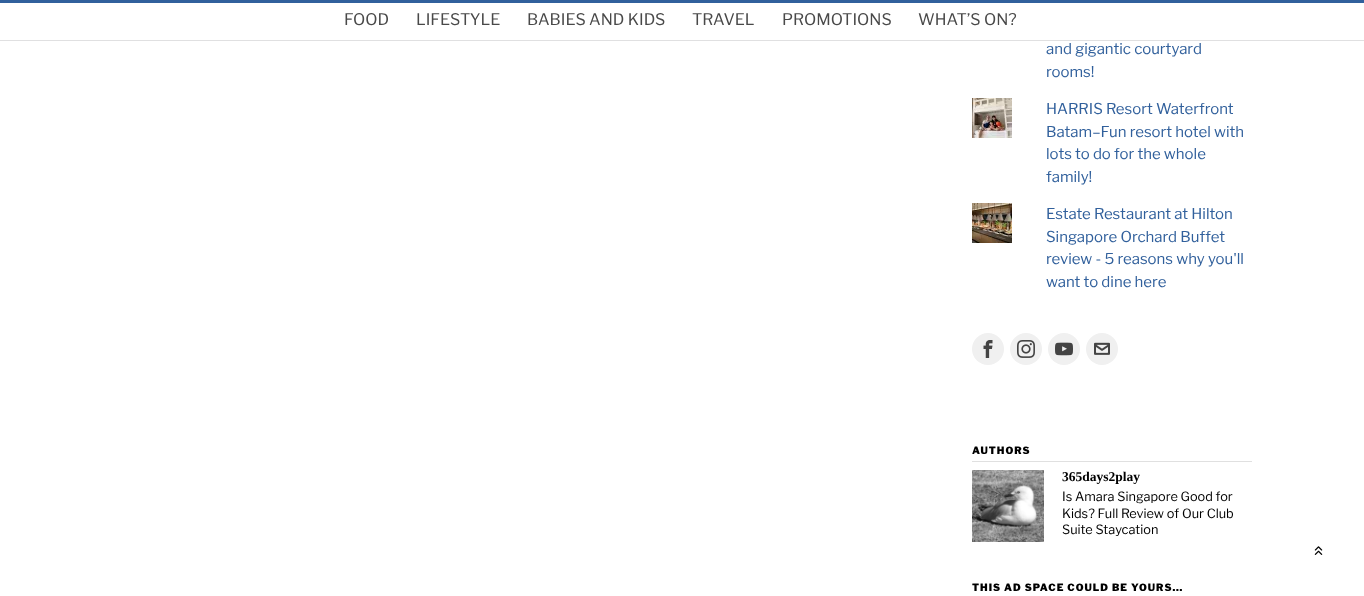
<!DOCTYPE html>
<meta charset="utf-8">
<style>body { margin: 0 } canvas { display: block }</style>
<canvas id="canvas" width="1364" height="596"></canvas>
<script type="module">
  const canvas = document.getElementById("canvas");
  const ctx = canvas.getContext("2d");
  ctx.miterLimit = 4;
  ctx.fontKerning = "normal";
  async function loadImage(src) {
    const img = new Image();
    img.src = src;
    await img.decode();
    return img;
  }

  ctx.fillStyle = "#ffffff";
  ctx.fillRect(0, 0, 1364, 596);
  ctx.fillStyle = "#31609c";
  ctx.fillRect(0, 0, 1364, 3);
  ctx.fillStyle = "#e0e0e1";
  ctx.fillRect(0, 40, 1364, 1);
  ctx.font = "16px Libre Franklin";
  ctx.fillStyle = "#494949";
  ctx.fillText("FOOD", 344, 25);
  ctx.fillText("LIFESTYLE", 416, 25);
  ctx.fillText("BABIES AND KIDS", 527, 25);
  ctx.fillText("TRAVEL", 692, 25);
  ctx.fillText("PROMOTIONS", 782, 25);
  ctx.fillText("WHAT’S ON?", 918, 25);
  ctx.font = "15px Libre Franklin";
  ctx.fillStyle = "#31609c";
  ctx.fillText("and gigantic courtyard", 1046, 54);
  ctx.fillText("rooms!", 1046, 77);
  ctx.drawImage(await loadImage("img1.png"), 972, 98, 40, 40);
  ctx.fillText("HARRIS Resort Waterfront", 1046, 114);
  ctx.fillText("Batam–Fun resort hotel with", 1046, 137);
  ctx.fillText("lots to do for the whole", 1046, 159);
  ctx.fillText("family!", 1046, 182);
  ctx.drawImage(await loadImage("img2.png"), 972, 203, 40, 40);
  ctx.fillText("Estate Restaurant at Hilton", 1046, 219);
  ctx.fillText("Singapore Orchard Buffet", 1046, 242);
  ctx.fillText("review - 5 reasons why you'll", 1046, 264);
  ctx.fillText("want to dine here", 1046, 287);
  ctx.fillStyle = "#f0f0f0";
  ctx.beginPath();
  ctx.arc(988, 349, 16, 0, Math.PI * 2);
  ctx.fill();
  ctx.drawImage(await loadImage("img3.png"), 983, 340, 10, 18);
  ctx.beginPath();
  ctx.arc(1026, 349, 16, 0, Math.PI * 2);
  ctx.fill();
  ctx.drawImage(await loadImage("img4.png"), 1017, 340, 18, 18);
  ctx.beginPath();
  ctx.arc(1064, 349, 16, 0, Math.PI * 2);
  ctx.fill();
  ctx.drawImage(await loadImage("img5.png"), 1055, 342, 18, 14);
  ctx.beginPath();
  ctx.arc(1102, 349, 16, 0, Math.PI * 2);
  ctx.fill();
  ctx.drawImage(await loadImage("img6.png"), 1094, 342, 16, 13);
  ctx.fillStyle = "#e0e0e0";
  ctx.fillRect(972, 461, 280, 1);
  ctx.letterSpacing = "1px";
  ctx.font = "900 10px Libre Franklin";
  ctx.fillStyle = "#000000";
  ctx.fillText("AUTHORS", 972, 454);
  ctx.drawImage(await loadImage("img7.png"), 972, 470, 72, 72);
  ctx.letterSpacing = "0px";
  ctx.font = "bold 13.5px Tinos";
  ctx.fillText("365days2play", 1062, 481);
  ctx.font = "12.75px Libre Franklin";
  ctx.fillText("Is Amara Singapore Good for", 1062, 501);
  ctx.fillText("Kids? Full Review of Our Club", 1062, 518);
  ctx.fillText("Suite Staycation", 1062, 534);
  ctx.letterSpacing = "1px";
  ctx.font = "900 10px Libre Franklin";
  ctx.fillText("THIS AD SPACE COULD BE YOURS…", 972, 591);
  ctx.drawImage(await loadImage("img8.png"), 1314, 546, 9, 9);
</script>
